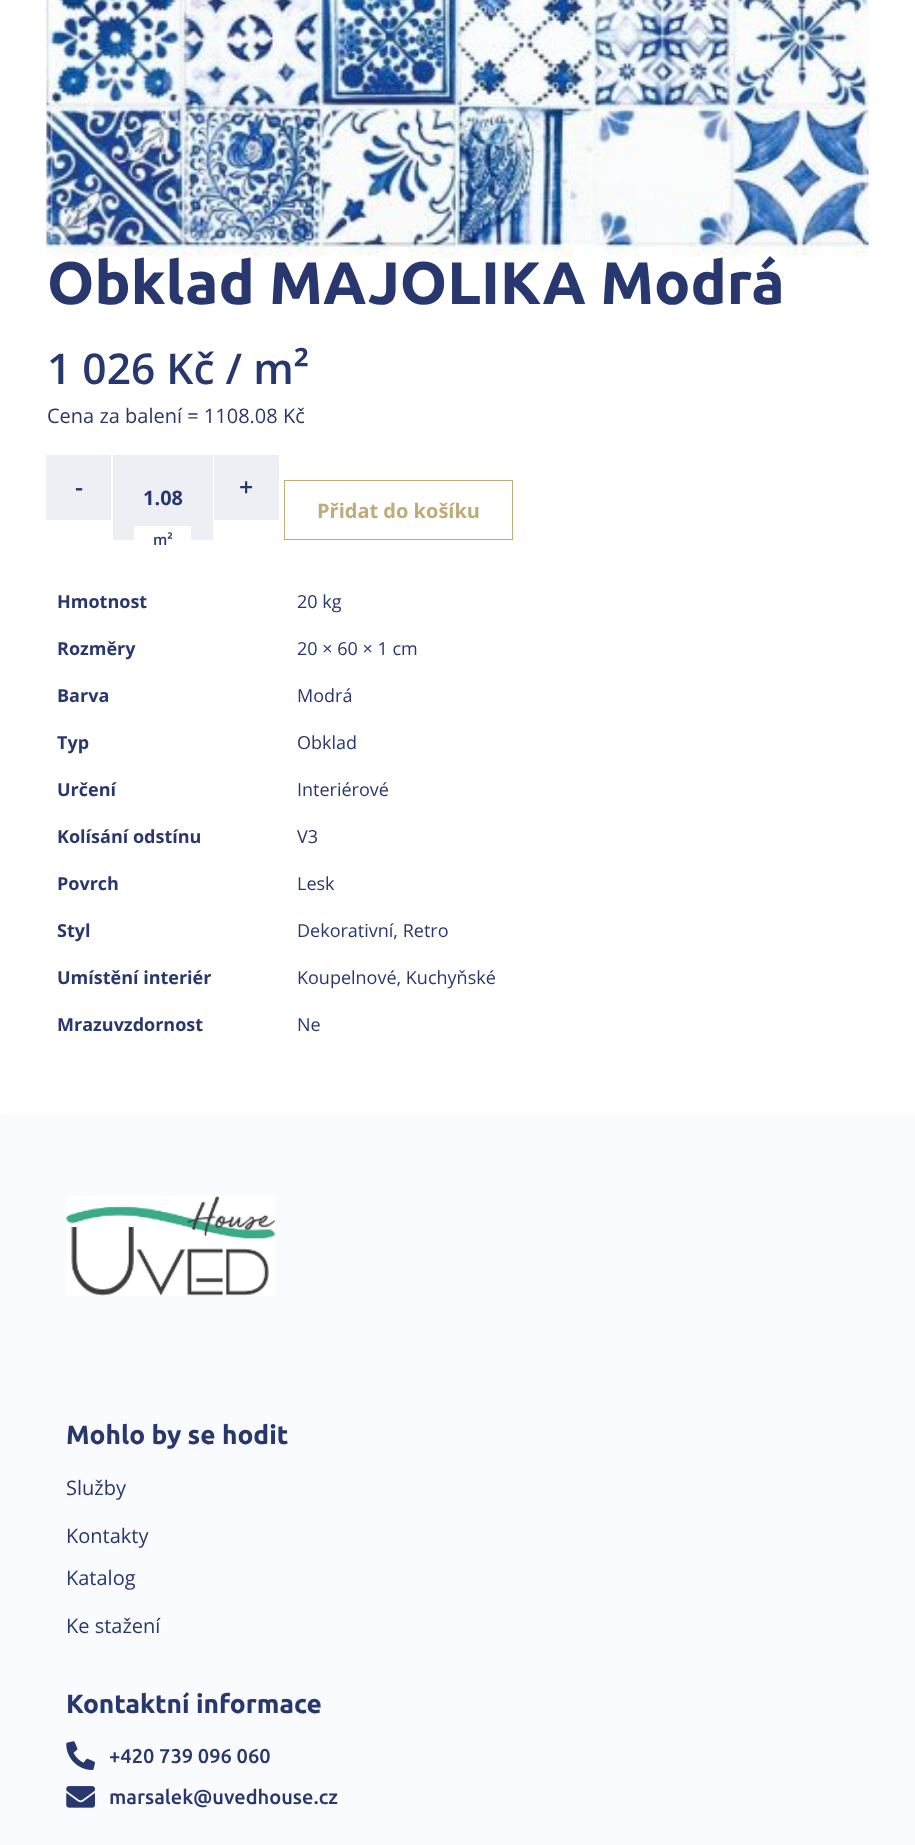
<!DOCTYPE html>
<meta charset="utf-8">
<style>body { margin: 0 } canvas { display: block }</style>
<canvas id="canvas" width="915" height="1845"></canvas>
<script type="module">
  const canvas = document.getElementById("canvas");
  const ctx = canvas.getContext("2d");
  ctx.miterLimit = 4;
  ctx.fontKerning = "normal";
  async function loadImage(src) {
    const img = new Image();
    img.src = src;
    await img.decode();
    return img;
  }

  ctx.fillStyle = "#ffffff";
  ctx.fillRect(0, 0, 915, 1845);
  ctx.drawImage(await loadImage("img1.png"), 46, 0, 823, 258);
  ctx.font = "bold 60px Ubuntu";
  ctx.fillStyle = "#28376d";
  ctx.fillText("Obklad MAJOLIKA Modrá", 47, 304);
  ctx.font = "600 42.5px Open Sans";
  ctx.fillText("1 026 Kč / m²", 47, 384);
  ctx.font = "20px Open Sans";
  ctx.fillText("Cena za balení = 1108.08 Kč", 47, 423);
  ctx.fillStyle = "#edeff4";
  ctx.fillRect(46, 455, 65, 65);
  ctx.font = "600 25px Open Sans";
  ctx.fillStyle = "#28376d";
  ctx.fillText("-", 75, 496);
  ctx.fillStyle = "#edeff4";
  ctx.fillRect(214, 455, 65, 65);
  ctx.fillStyle = "#28376d";
  ctx.fillText("+", 239, 496);
  ctx.fillStyle = "#edeff4";
  ctx.fillRect(113, 455, 100, 85);
  ctx.font = "bold 20px Open Sans";
  ctx.fillStyle = "#28376d";
  ctx.fillText("1.08", 143, 505);
  ctx.fillStyle = "#ffffff";
  ctx.fillRect(134, 526, 57, 14);
  ctx.font = "600 15px Open Sans";
  ctx.fillStyle = "#28376d";
  ctx.fillText("m²", 153, 545);
  ctx.strokeStyle = "#c0ab78";
  ctx.strokeRect(284.5, 480.5, 228, 59);
  ctx.font = "bold 20px Open Sans";
  ctx.fillStyle = "#c0ab78";
  ctx.fillText("Přidat do košíku", 317, 518);
  ctx.font = "bold 18px Open Sans";
  ctx.fillStyle = "#28376d";
  ctx.fillText("Hmotnost", 57, 608);
  ctx.font = "18px Open Sans";
  ctx.fillText("20 kg", 297, 608);
  ctx.font = "bold 18px Open Sans";
  ctx.fillText("Rozměry", 57, 655);
  ctx.font = "18px Open Sans";
  ctx.fillText("20 × 60 × 1 cm", 297, 655);
  ctx.font = "bold 18px Open Sans";
  ctx.fillText("Barva", 57, 702);
  ctx.font = "18px Open Sans";
  ctx.fillText("Modrá", 297, 702);
  ctx.font = "bold 18px Open Sans";
  ctx.fillText("Typ", 57, 749);
  ctx.font = "18px Open Sans";
  ctx.fillText("Obklad", 297, 749);
  ctx.font = "bold 18px Open Sans";
  ctx.fillText("Určení", 57, 796);
  ctx.font = "18px Open Sans";
  ctx.fillText("Interiérové", 297, 796);
  ctx.font = "bold 18px Open Sans";
  ctx.fillText("Kolísání odstínu", 57, 843);
  ctx.font = "18px Open Sans";
  ctx.fillText("V3", 297, 843);
  ctx.font = "bold 18px Open Sans";
  ctx.fillText("Povrch", 57, 890);
  ctx.font = "18px Open Sans";
  ctx.fillText("Lesk", 297, 890);
  ctx.font = "bold 18px Open Sans";
  ctx.fillText("Styl", 57, 937);
  ctx.font = "18px Open Sans";
  ctx.fillText("Dekorativní, Retro", 297, 937);
  ctx.font = "bold 18px Open Sans";
  ctx.fillText("Umístění interiér", 57, 984);
  ctx.font = "18px Open Sans";
  ctx.fillText("Koupelnové, Kuchyňské", 297, 984);
  ctx.font = "bold 18px Open Sans";
  ctx.fillText("Mrazuvzdornost", 57, 1031);
  ctx.font = "18px Open Sans";
  ctx.fillText("Ne", 297, 1031);
  ctx.fillStyle = "#fafbff";
  ctx.beginPath();
  ctx.moveTo(2.5, 1114);
  ctx.lineTo(915, 1114);
  ctx.lineTo(915, 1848);
  ctx.lineTo(0, 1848);
  ctx.lineTo(0, 1116.5);
  ctx.bezierCurveTo(0, 1115, 1, 1114, 2.5, 1114);
  ctx.closePath();
  ctx.fill();
  ctx.drawImage(await loadImage("img2.png"), 66, 1195, 209, 101);
  ctx.font = "bold 26.25px Ubuntu";
  ctx.fillStyle = "#28376d";
  ctx.fillText("Mohlo by se hodit", 66, 1444);
  ctx.font = "20px Open Sans";
  ctx.fillText("Služby", 66, 1495);
  ctx.fillText("Kontakty", 66, 1543);
  ctx.fillText("Katalog", 66, 1585);
  ctx.fillText("Ke stažení", 66, 1633);
  ctx.font = "bold 26.25px Ubuntu";
  ctx.fillText("Kontaktní informace", 66, 1713);
  ctx.drawImage(await loadImage("img3.png"), 66, 1741, 29, 29);
  ctx.font = "500 20px Ubuntu";
  ctx.fillText("+420 739 096 060", 109, 1763);
  ctx.drawImage(await loadImage("img4.png"), 66, 1786, 29, 22);
  ctx.fillText("marsalek@uvedhouse.cz", 109, 1804);
</script>
